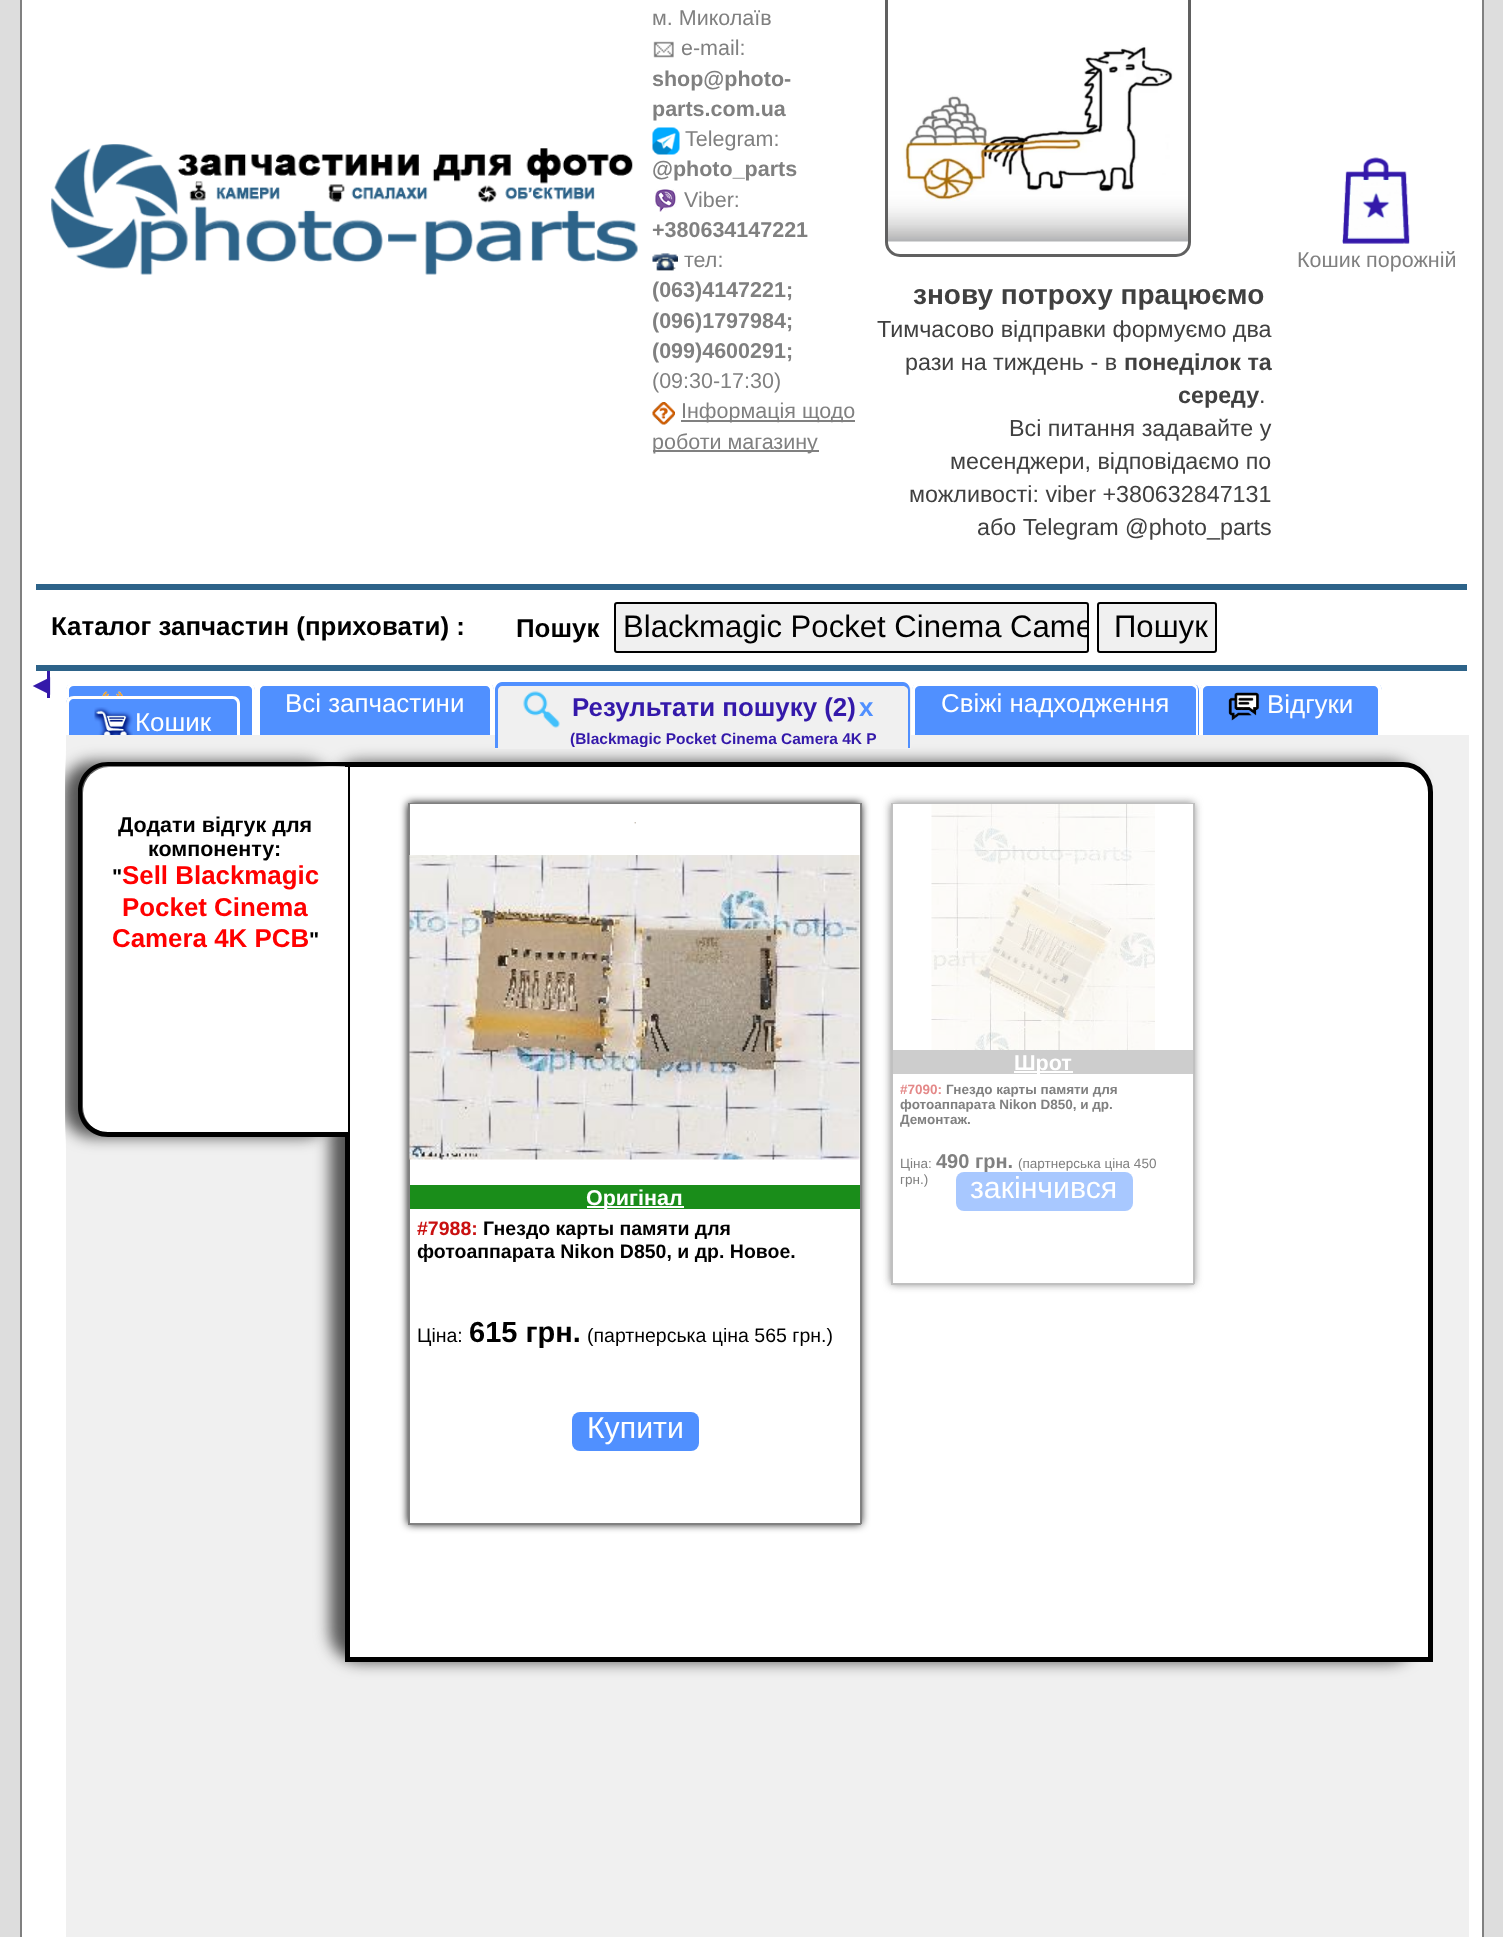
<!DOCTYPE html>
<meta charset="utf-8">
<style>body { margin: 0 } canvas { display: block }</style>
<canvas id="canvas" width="1503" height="1937"></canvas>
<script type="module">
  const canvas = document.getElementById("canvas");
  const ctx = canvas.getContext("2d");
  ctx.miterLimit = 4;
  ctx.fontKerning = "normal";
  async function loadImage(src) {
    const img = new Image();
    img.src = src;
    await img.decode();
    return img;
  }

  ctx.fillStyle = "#dddddd";
  ctx.fillRect(0, 0, 1503, 1937);
  ctx.fillStyle = "#ffffff";
  ctx.beginPath();
  ctx.rect(21, -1, 1462, 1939);
  ctx.fill();
  ctx.strokeStyle = "#808080";
  ctx.lineWidth = 2;
  ctx.stroke();
  ctx.font = "21.5px Liberation Sans";
  ctx.fillStyle = "#808080";
  ctx.fillText("м. Миколаїв", 652, 25);
  ctx.drawImage(await loadImage("img1.png"), 653, 41, 21, 17);
  ctx.fillText("e-mail:", 681, 55);
  ctx.font = "bold 21.5px Liberation Sans";
  ctx.fillText("shop@photo-", 652, 86);
  ctx.fillText("parts.com.ua", 652, 116);
  ctx.drawImage(await loadImage("img2.png"), 652, 127, 28, 28);
  ctx.font = "21.5px Liberation Sans";
  ctx.fillText("Telegram:", 685, 146);
  ctx.font = "bold 21.5px Liberation Sans";
  ctx.fillText("@photo_parts", 652, 176);
  ctx.drawImage(await loadImage("img3.png"), 654, 189, 23, 23);
  ctx.font = "21.5px Liberation Sans";
  ctx.fillText("Viber:", 684, 207);
  ctx.font = "bold 21.5px Liberation Sans";
  ctx.fillText("+380634147221", 652, 237);
  ctx.drawImage(await loadImage("img4.png"), 652, 253, 26, 18);
  ctx.font = "21.5px Liberation Sans";
  ctx.fillText("тел:", 684, 267);
  ctx.font = "bold 21.5px Liberation Sans";
  ctx.fillText("(063)4147221;", 652, 297);
  ctx.fillText("(096)1797984;", 652, 328);
  ctx.fillText("(099)4600291;", 652, 358);
  ctx.font = "21.5px Liberation Sans";
  ctx.fillText("(09:30-17:30)", 652, 388);
  ctx.drawImage(await loadImage("img5.png"), 652, 402, 23, 23);
  ctx.fillRect(681, 420, 174, 2);
  ctx.fillText("Інформація щодо", 681, 418);
  ctx.fillRect(653, 450, 166, 2);
  ctx.fillText("роботи магазину", 652, 449);
  ctx.fillStyle = "#2d6389";
  ctx.fillRect(36, 584, 1431, 6);
  ctx.drawImage(await loadImage("img6.png"), 51, 144, 587, 131);
  ctx.drawImage(await loadImage("img7.png"), 1342, 157, 68, 87);
  ctx.fillStyle = "#808080";
  ctx.fillText("Кошик порожній", 1297, 267);
  ctx.drawImage(await loadImage("img8.png"), 888, 45, 300, 197);
  ctx.beginPath();
  ctx.roundRect(886.5, -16.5, 303, 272, 13.5);
  ctx.strokeStyle = "#606060";
  ctx.lineWidth = 3;
  ctx.stroke();
  ctx.font = "bold 28px Liberation Sans";
  ctx.fillStyle = "#404040";
  ctx.fillText("знову потроху працюємо", 913, 304);
  ctx.font = "23.3px Liberation Sans";
  ctx.fillText("Тимчасово відправки формуємо два", 877, 337);
  ctx.fillText("рази на тиждень - в", 905, 370);
  ctx.font = "bold 23.3px Liberation Sans";
  ctx.fillText("понеділок та", 1124, 370);
  ctx.fillText("середу", 1178, 403);
  ctx.font = "23.3px Liberation Sans";
  ctx.fillText(".", 1259, 403);
  ctx.fillText("Всі питання задавайте у", 1009, 436);
  ctx.fillText("месенджери, відповідаємо по", 950, 469);
  ctx.fillText("можливості: viber +380632847131", 909, 502);
  ctx.fillText("або Telegram @photo_parts", 977, 535);
  ctx.fillStyle = "#2d6389";
  ctx.fillRect(36, 665, 1431, 6);
  ctx.font = "bold 25.9px Liberation Sans";
  ctx.fillStyle = "#000000";
  ctx.fillText("Каталог запчастин (приховати) :", 51, 635);
  ctx.fillText("Пошук", 516, 637);
  ctx.fillStyle = "#f0f0f0";
  ctx.beginPath();
  ctx.roundRect(615, 603, 473, 49, 2);
  ctx.fill();
  ctx.strokeStyle = "#000000";
  ctx.lineWidth = 2;
  ctx.stroke();
  ctx.save();
  ctx.beginPath();
  ctx.rect(623, 609, 465, 36);
  ctx.clip();
  ctx.font = "31.1px Liberation Sans";
  ctx.fillStyle = "#000000";
  ctx.fillText("Blackmagic Pocket Cinema Came", 623, 637);
  ctx.restore();
  ctx.beginPath();
  ctx.roundRect(1098, 603, 118, 49, 2);
  ctx.fill();
  ctx.stroke();
  ctx.font = "31.1px Liberation Sans";
  ctx.fillStyle = "#000000";
  ctx.fillText("Пошук", 1114, 637);
  ctx.fillStyle = "#3419aa";
  ctx.fillRect(47, 671, 3, 27);
  ctx.font = "bold 21.5px DejaVu Sans";
  ctx.fillText("◀", 33, 692);
  ctx.fillStyle = "#5090ff";
  ctx.beginPath();
  ctx.roundRect(66, 683, 189, 66, [8, 8, 0, 0]);
  ctx.fill();
  ctx.fillStyle = "#ffffff";
  ctx.beginPath();
  ctx.moveTo(74, 682);
  ctx.lineTo(248, 682);
  ctx.bezierCurveTo(252, 682, 255, 686, 255, 690);
  ctx.lineTo(255, 748);
  ctx.lineTo(66, 748);
  ctx.lineTo(66, 690);
  ctx.bezierCurveTo(66, 686, 69, 682, 74, 682);
  ctx.closePath();
  ctx.moveTo(74, 686);
  ctx.lineTo(248, 686);
  ctx.bezierCurveTo(250, 686, 252, 688, 252, 690);
  ctx.lineTo(252, 748);
  ctx.lineTo(69, 748);
  ctx.lineTo(69, 690);
  ctx.bezierCurveTo(69, 688, 71, 686, 74, 686);
  ctx.closePath();
  ctx.fill("evenodd");
  ctx.drawImage(await loadImage("img9.png"), 102, 691, 21, 5);
  ctx.fillStyle = "#5090ff";
  ctx.beginPath();
  ctx.roundRect(257, 683, 237, 66, [8, 8, 0, 0]);
  ctx.fill();
  ctx.fillStyle = "#ffffff";
  ctx.beginPath();
  ctx.moveTo(264, 682);
  ctx.lineTo(486, 682);
  ctx.bezierCurveTo(490, 682, 494, 686, 494, 690);
  ctx.lineTo(494, 748);
  ctx.lineTo(256, 748);
  ctx.lineTo(256, 690);
  ctx.bezierCurveTo(256, 686, 260, 682, 264, 682);
  ctx.closePath();
  ctx.moveTo(264, 686);
  ctx.lineTo(486, 686);
  ctx.bezierCurveTo(488, 686, 490, 688, 490, 690);
  ctx.lineTo(490, 748);
  ctx.lineTo(260, 748);
  ctx.lineTo(260, 690);
  ctx.bezierCurveTo(260, 688, 262, 686, 264, 686);
  ctx.closePath();
  ctx.fill("evenodd");
  ctx.font = "25.9px Liberation Sans";
  ctx.fillText("Всі запчастини", 285, 712);
  ctx.fillStyle = "#5090ff";
  ctx.beginPath();
  ctx.roundRect(912, 683, 287, 66, [8, 8, 0, 0]);
  ctx.fill();
  ctx.fillStyle = "#ffffff";
  ctx.beginPath();
  ctx.moveTo(920, 682);
  ctx.lineTo(1191, 682);
  ctx.bezierCurveTo(1195, 682, 1198, 686, 1198, 690);
  ctx.lineTo(1198, 748);
  ctx.lineTo(912, 748);
  ctx.lineTo(912, 690);
  ctx.bezierCurveTo(912, 686, 915, 682, 920, 682);
  ctx.closePath();
  ctx.moveTo(920, 686);
  ctx.lineTo(1191, 686);
  ctx.bezierCurveTo(1193, 686, 1196, 688, 1196, 690);
  ctx.lineTo(1196, 748);
  ctx.lineTo(915, 748);
  ctx.lineTo(915, 690);
  ctx.bezierCurveTo(915, 688, 917, 686, 920, 686);
  ctx.closePath();
  ctx.fill("evenodd");
  ctx.fillStyle = "#5090ff";
  ctx.beginPath();
  ctx.roundRect(1200, 683, 182, 66, [8, 8, 0, 0]);
  ctx.fill();
  ctx.fillStyle = "#ffffff";
  ctx.beginPath();
  ctx.moveTo(1208, 682);
  ctx.lineTo(1374, 682);
  ctx.bezierCurveTo(1378, 682, 1382, 686, 1382, 690);
  ctx.lineTo(1382, 748);
  ctx.lineTo(1200, 748);
  ctx.lineTo(1200, 690);
  ctx.bezierCurveTo(1200, 686, 1203, 682, 1208, 682);
  ctx.closePath();
  ctx.moveTo(1208, 686);
  ctx.lineTo(1374, 686);
  ctx.bezierCurveTo(1376, 686, 1378, 688, 1378, 690);
  ctx.lineTo(1378, 748);
  ctx.lineTo(1203, 748);
  ctx.lineTo(1203, 690);
  ctx.bezierCurveTo(1203, 688, 1205, 686, 1208, 686);
  ctx.closePath();
  ctx.fill("evenodd");
  ctx.fillStyle = "#5090ff";
  ctx.beginPath();
  ctx.roundRect(66, 696, 174, 66, [8, 8, 0, 0]);
  ctx.fill();
  ctx.fillStyle = "#ffffff";
  ctx.beginPath();
  ctx.moveTo(74, 696);
  ctx.lineTo(232, 696);
  ctx.bezierCurveTo(237, 696, 240, 699, 240, 704);
  ctx.lineTo(240, 762);
  ctx.lineTo(66, 762);
  ctx.lineTo(66, 704);
  ctx.bezierCurveTo(66, 699, 69, 696, 74, 696);
  ctx.closePath();
  ctx.moveTo(74, 699);
  ctx.lineTo(232, 699);
  ctx.bezierCurveTo(235, 699, 237, 701, 237, 704);
  ctx.lineTo(237, 762);
  ctx.lineTo(69, 762);
  ctx.lineTo(69, 704);
  ctx.bezierCurveTo(69, 701, 71, 699, 74, 699);
  ctx.closePath();
  ctx.fill("evenodd");
  ctx.fillStyle = "#f0f0f0";
  ctx.fillRect(66, 735, 1403, 1202);
  ctx.fillStyle = "#555555";
  ctx.filter = "blur(7.5px)";
  ctx.beginPath();
  ctx.roundRect(330, 762, 1088, 900, 30);
  ctx.fill();
  ctx.filter = "none";
  ctx.fillStyle = "#f0f0f0";
  ctx.beginPath();
  ctx.roundRect(495, 683, 416, 66, [8, 8, 0, 0]);
  ctx.fill();
  ctx.fillStyle = "#5090ff";
  ctx.beginPath();
  ctx.moveTo(502, 682);
  ctx.lineTo(903, 682);
  ctx.bezierCurveTo(907, 682, 910, 686, 910, 690);
  ctx.lineTo(910, 748);
  ctx.lineTo(495, 748);
  ctx.lineTo(495, 690);
  ctx.bezierCurveTo(495, 686, 498, 682, 502, 682);
  ctx.closePath();
  ctx.moveTo(502, 686);
  ctx.lineTo(903, 686);
  ctx.bezierCurveTo(905, 686, 908, 688, 908, 690);
  ctx.lineTo(908, 748);
  ctx.lineTo(498, 748);
  ctx.lineTo(498, 690);
  ctx.bezierCurveTo(498, 688, 500, 686, 502, 686);
  ctx.closePath();
  ctx.fill("evenodd");
  ctx.drawImage(await loadImage("img10.png"), 523, 691, 37, 37);
  ctx.font = "bold 25.9px Liberation Sans";
  ctx.fillStyle = "#3419aa";
  ctx.fillText("Результати пошуку (2)", 572, 716);
  ctx.fillStyle = "#5090ff";
  ctx.fillText("x", 859, 716);
  ctx.save();
  ctx.beginPath();
  ctx.rect(570, 732, 312, 15);
  ctx.clip();
  ctx.font = "bold 15.5px Liberation Sans";
  ctx.fillStyle = "#3419aa";
  ctx.fillText("(Blackmagic Pocket Cinema Camera 4K P", 570, 744);
  ctx.restore();
  ctx.font = "25.9px Liberation Sans";
  ctx.fillStyle = "#ffffff";
  ctx.fillText("Свіжі надходження", 941, 712);
  ctx.drawImage(await loadImage("img11.png"), 1228, 692, 32, 29);
  ctx.fillText("Відгуки", 1267, 713);
  ctx.drawImage(await loadImage("img12.png"), 94, 707, 39, 28);
  ctx.fillText("Кошик", 135, 731);
  ctx.beginPath();
  ctx.roundRect(347.5, 764.5, 1083, 895, [0, 27.5, 0, 0]);
  ctx.fill();
  ctx.lineWidth = 5;
  ctx.stroke();
  ctx.save();
  ctx.beginPath();
  ctx.rect(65, 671, 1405, 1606);
  ctx.clip();
  ctx.fillStyle = "#555555";
  ctx.filter = "blur(7.5px)";
  ctx.beginPath();
  ctx.roundRect(63, 762, 270, 375, 30);
  ctx.fill();
  ctx.filter = "none";
  ctx.restore();
  ctx.beginPath();
  ctx.roundRect(83, 767, 265, 366, [26, 0, 0, 26]);
  ctx.fill();
  ctx.fillStyle = "#000000";
  ctx.beginPath();
  ctx.moveTo(108, 762);
  ctx.lineTo(348, 762);
  ctx.lineTo(348, 1137);
  ctx.lineTo(108, 1137);
  ctx.bezierCurveTo(91, 1137, 78, 1124, 78, 1107);
  ctx.lineTo(78, 792);
  ctx.bezierCurveTo(78, 775, 91, 762, 108, 762);
  ctx.closePath();
  ctx.moveTo(108, 766);
  ctx.lineTo(348, 766);
  ctx.lineTo(348, 1132);
  ctx.lineTo(108, 1132);
  ctx.bezierCurveTo(94, 1132, 82, 1121, 82, 1107);
  ctx.lineTo(82, 792);
  ctx.bezierCurveTo(82, 778, 94, 766, 108, 766);
  ctx.closePath();
  ctx.fill("evenodd");
  ctx.font = "bold 21.5px Liberation Sans";
  ctx.fillText("Додати відгук для", 118, 832);
  ctx.fillText("компоненту:", 148, 856);
  ctx.fillText("\"", 112, 884);
  ctx.font = "bold 25.9px Liberation Sans";
  ctx.fillStyle = "#ff0000";
  ctx.fillText("Sell Blackmagic", 122, 884);
  ctx.fillText("Pocket Cinema", 122, 916);
  ctx.fillText("Camera 4K PCB", 112, 947);
  ctx.font = "bold 21.5px Liberation Sans";
  ctx.fillStyle = "#000000";
  ctx.fillText("\"", 309, 947);
  ctx.save();
  ctx.beginPath();
  ctx.moveTo(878, 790);
  ctx.lineTo(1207, 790);
  ctx.lineTo(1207, 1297);
  ctx.lineTo(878, 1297);
  ctx.closePath();
  ctx.moveTo(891, 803);
  ctx.lineTo(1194, 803);
  ctx.lineTo(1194, 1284);
  ctx.lineTo(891, 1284);
  ctx.closePath();
  ctx.clip("evenodd");
  ctx.fillStyle = "#808080";
  ctx.filter = "blur(4px)";
  ctx.beginPath();
  ctx.rect(891, 803, 303, 481);
  ctx.fill();
  ctx.filter = "none";
  ctx.restore();
  ctx.fillStyle = "#c0c0c0";
  ctx.fillRect(891, 803, 303, 1);
  ctx.fillRect(1193, 803, 2, 481);
  ctx.fillRect(891, 1283, 303, 2);
  ctx.fillRect(891, 803, 2, 481);
  ctx.drawImage(await loadImage("img13.png"), 931, 804, 224, 246);
  ctx.drawImage(await loadImage("img14.png"), 1042, 822, 2, 2);
  ctx.fillStyle = "#cdcdcd";
  ctx.fillRect(893, 1050, 300, 24);
  ctx.fillStyle = "#ffffff";
  ctx.fillRect(1014, 1071, 59, 2);
  ctx.save();
  ctx.beginPath();
  ctx.rect(893, 804, 300, 270);
  ctx.clip();
  ctx.fillText("Шрот", 1014, 1070);
  ctx.restore();
  ctx.font = "bold 13.5px Liberation Sans";
  ctx.fillStyle = "#e48888";
  ctx.fillText("#7090:", 900, 1094);
  ctx.fillStyle = "#808080";
  ctx.fillText("Гнездо карты памяти для", 946, 1094);
  ctx.fillText("фотоаппарата Nikon D850, и др.", 900, 1109);
  ctx.fillText("Демонтаж.", 900, 1124);
  ctx.font = "13.5px Liberation Sans";
  ctx.fillText("Ціна:", 900, 1168);
  ctx.font = "bold 20px Liberation Sans";
  ctx.fillText("490 грн.", 936, 1168);
  ctx.font = "13.5px Liberation Sans";
  ctx.fillText("(партнерська ціна 450", 1018, 1168);
  ctx.fillText("грн.)", 900, 1184);
  ctx.fillStyle = "#a8c8ff";
  ctx.beginPath();
  ctx.roundRect(956, 1172, 177, 39, 8);
  ctx.fill();
  ctx.font = "30.25px Liberation Sans";
  ctx.fillStyle = "#ffffff";
  ctx.fillText("закінчився", 970, 1198);
  ctx.save();
  ctx.beginPath();
  ctx.moveTo(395, 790);
  ctx.lineTo(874, 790);
  ctx.lineTo(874, 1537);
  ctx.lineTo(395, 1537);
  ctx.closePath();
  ctx.moveTo(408, 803);
  ctx.lineTo(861, 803);
  ctx.lineTo(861, 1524);
  ctx.lineTo(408, 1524);
  ctx.closePath();
  ctx.clip("evenodd");
  ctx.fillStyle = "#000000";
  ctx.filter = "blur(4px)";
  ctx.beginPath();
  ctx.rect(408, 803, 453, 721);
  ctx.fill();
  ctx.filter = "none";
  ctx.restore();
  ctx.fillStyle = "#808080";
  ctx.fillRect(408, 803, 453, 1);
  ctx.fillRect(860, 803, 2, 721);
  ctx.fillRect(408, 1523, 453, 2);
  ctx.fillRect(408, 803, 2, 721);
  ctx.drawImage(await loadImage("img15.png"), 409, 855, 451, 305);
  ctx.drawImage(await loadImage("img16.png"), 634, 822, 2, 2);
  ctx.fillStyle = "#1a8d1a";
  ctx.fillRect(410, 1185, 450, 24);
  ctx.fillStyle = "#ffffff";
  ctx.fillRect(587, 1206, 97, 2);
  ctx.save();
  ctx.beginPath();
  ctx.rect(410, 804, 450, 405);
  ctx.clip();
  ctx.font = "bold 21.5px Liberation Sans";
  ctx.fillText("Оригінал", 586, 1205);
  ctx.restore();
  ctx.font = "bold 19.5px Liberation Sans";
  ctx.fillStyle = "#c91010";
  ctx.fillText("#7988:", 417, 1235);
  ctx.fillStyle = "#000000";
  ctx.fillText("Гнездо карты памяти для", 483, 1235);
  ctx.fillText("фотоаппарата Nikon D850, и др. Новое.", 417, 1258);
  ctx.font = "19.5px Liberation Sans";
  ctx.fillText("Ціна:", 417, 1342);
  ctx.font = "bold 29px Liberation Sans";
  ctx.fillText("615 грн.", 469, 1342);
  ctx.font = "19.5px Liberation Sans";
  ctx.fillText("(партнерська ціна 565 грн.)", 587, 1342);
  ctx.fillStyle = "#5090ff";
  ctx.beginPath();
  ctx.roundRect(572, 1412, 127, 39, 8);
  ctx.fill();
  ctx.font = "30.25px Liberation Sans";
  ctx.fillStyle = "#ffffff";
  ctx.fillText("Купити", 587, 1438);
</script>
